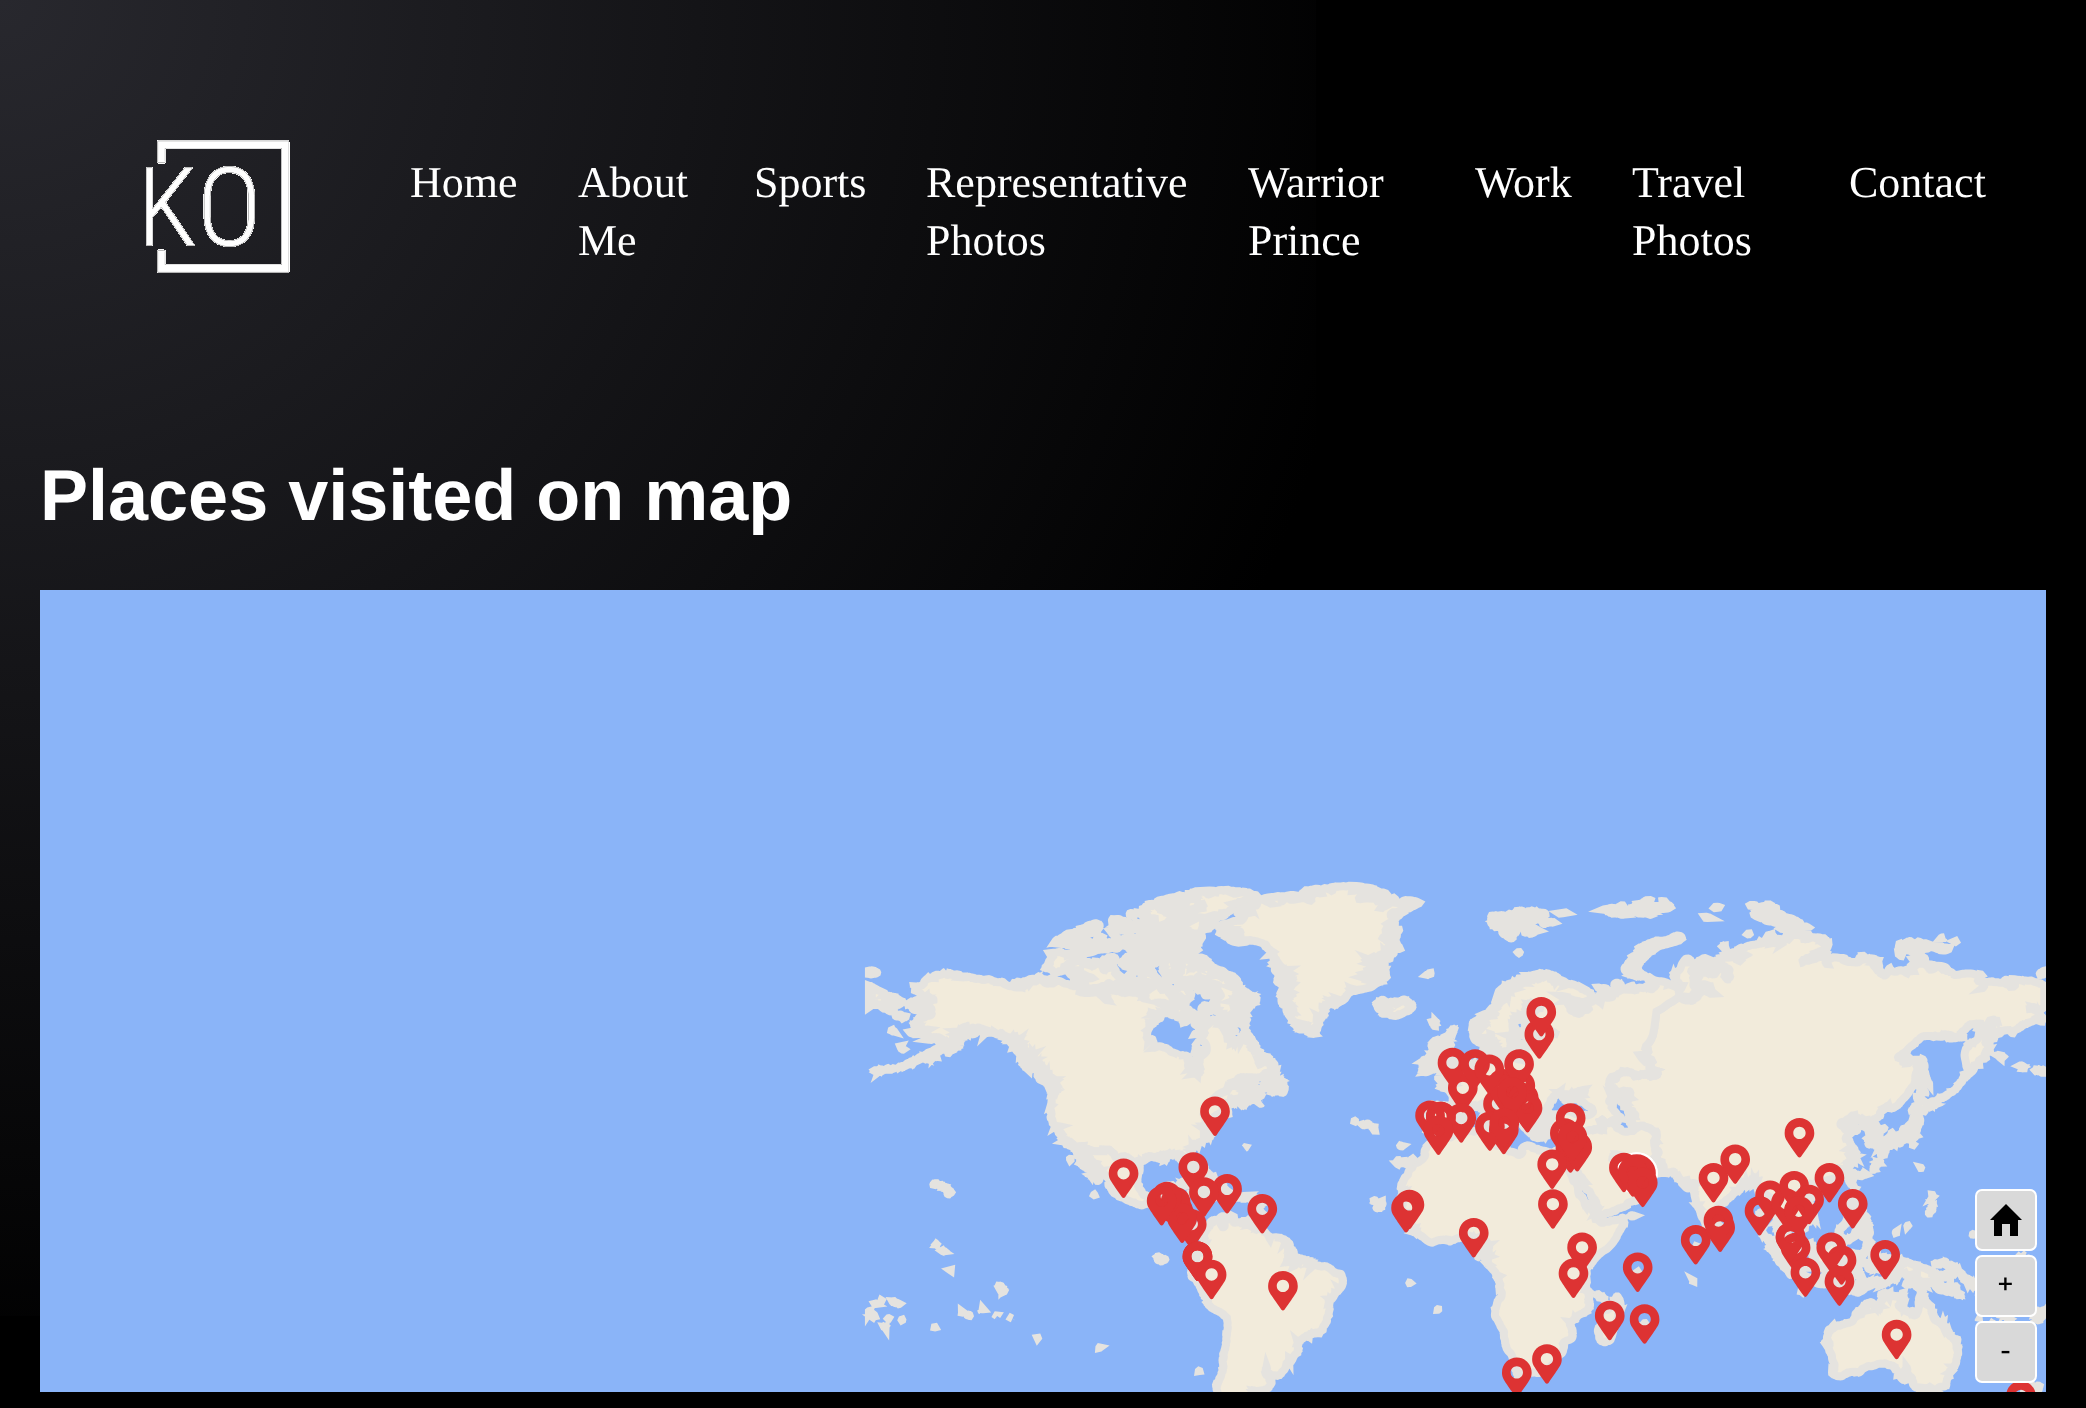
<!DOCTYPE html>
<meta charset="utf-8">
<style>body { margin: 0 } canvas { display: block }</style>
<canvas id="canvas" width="2086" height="1408"></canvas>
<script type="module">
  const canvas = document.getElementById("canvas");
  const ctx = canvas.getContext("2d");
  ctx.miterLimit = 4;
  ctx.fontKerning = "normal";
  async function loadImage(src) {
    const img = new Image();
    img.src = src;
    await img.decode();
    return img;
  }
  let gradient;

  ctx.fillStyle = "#000000";
  ctx.fillRect(0, 0, 2086, 1408);
  gradient = ctx.createRadialGradient(0, 0, 0, 0, 0, 1991);
  gradient.addColorStop(0, "#28282e");
  gradient.addColorStop(0.7, "#000000");
  ctx.fillStyle = gradient;
  ctx.fillRect(0, 0, 1316, 1316);
  ctx.drawImage(await loadImage("img1.png"), 146, 140, 144, 133);
  ctx.font = "44px Liberation Serif";
  ctx.fillStyle = "#ffffff";
  ctx.fillText("Home", 410, 197);
  ctx.fillText("About", 578, 197);
  ctx.fillText("Me", 578, 255);
  ctx.fillText("Sports", 754, 197);
  ctx.fillText("Representative", 926, 197);
  ctx.fillText("Photos", 926, 255);
  ctx.fillText("Warrior", 1248, 197);
  ctx.fillText("Prince", 1248, 255);
  ctx.fillText("Work", 1475, 197);
  ctx.fillText("Travel", 1632, 197);
  ctx.fillText("Photos", 1632, 255);
  ctx.fillText("Contact", 1849, 197);
  ctx.font = "bold 72px Liberation Sans";
  ctx.fillText("Places visited on map", 40, 520);
  ctx.drawImage(await loadImage("img2.png"), 40, 590, 2006, 802);
</script>
